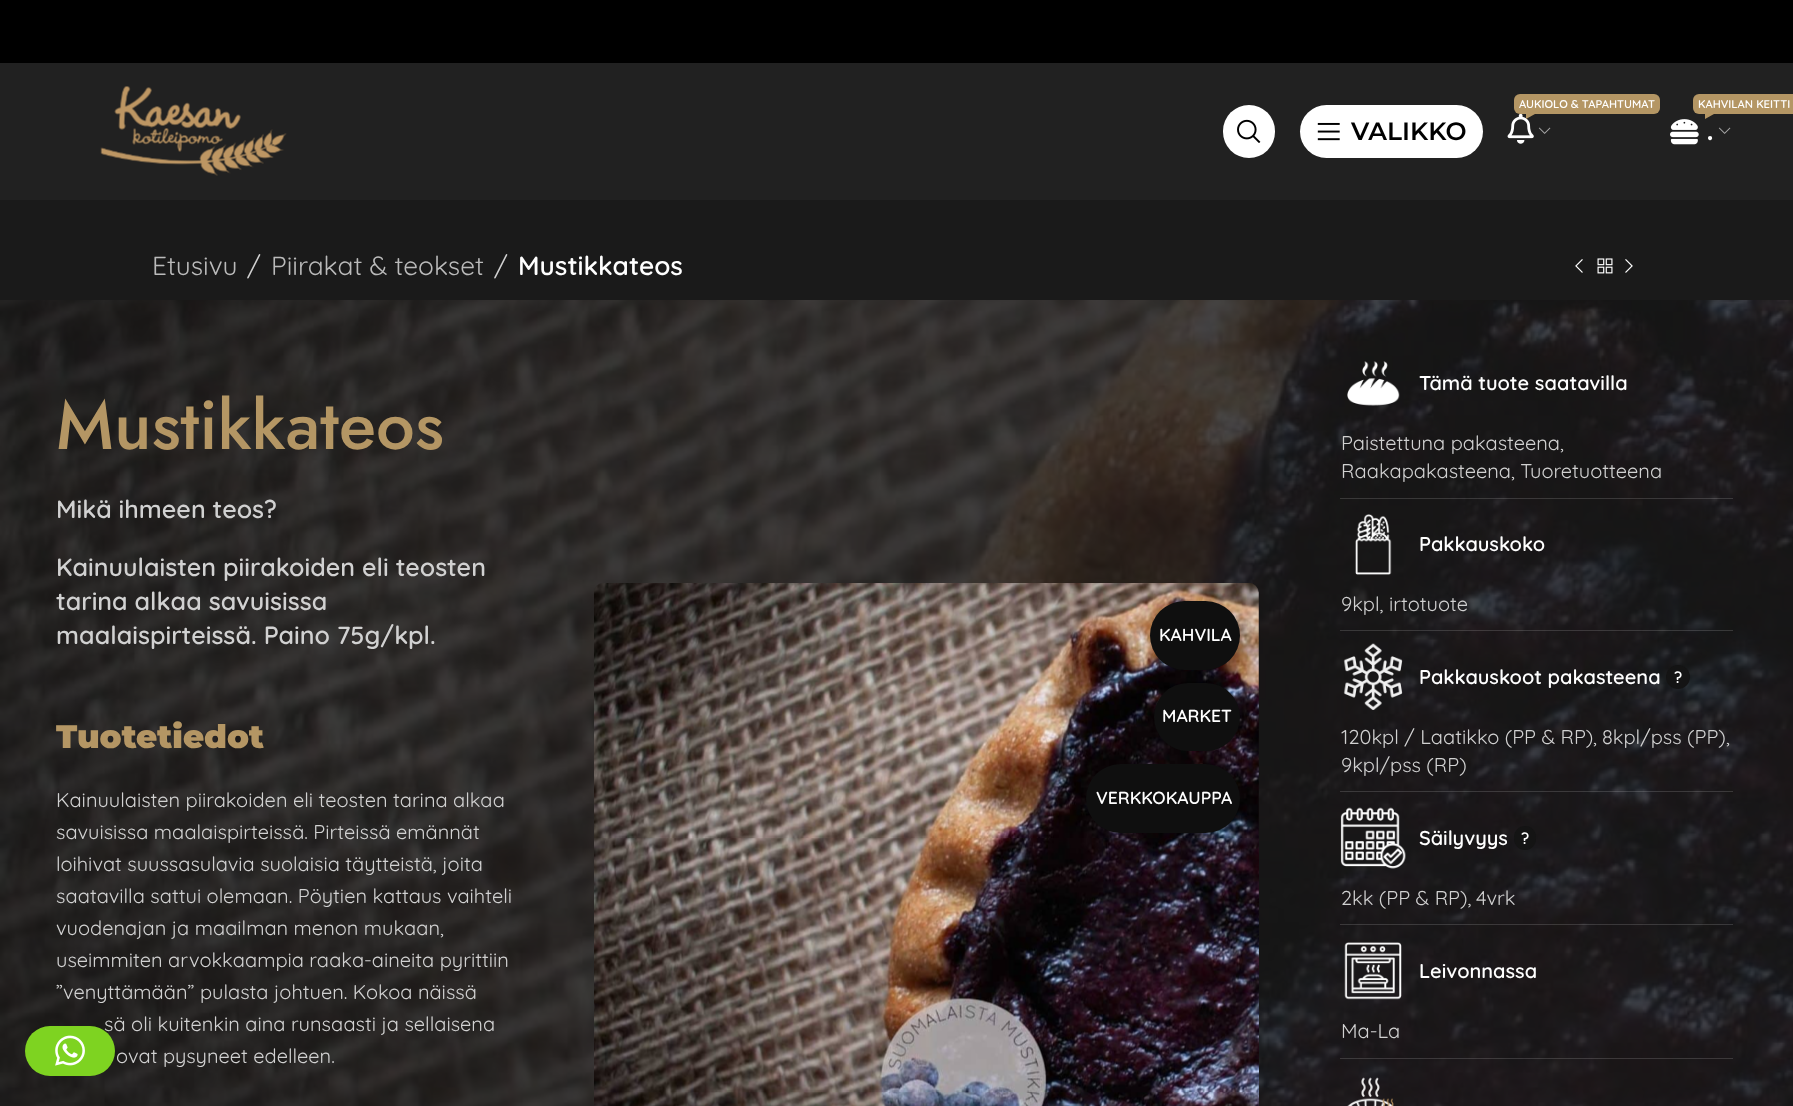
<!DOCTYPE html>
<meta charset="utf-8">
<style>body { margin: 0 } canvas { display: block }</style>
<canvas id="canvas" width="1793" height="1106"></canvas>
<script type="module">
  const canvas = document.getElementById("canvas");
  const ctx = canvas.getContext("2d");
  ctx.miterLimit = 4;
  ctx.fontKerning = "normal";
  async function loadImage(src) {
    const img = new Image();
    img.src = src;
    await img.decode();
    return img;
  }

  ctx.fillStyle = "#1a1a1a";
  ctx.fillRect(0, 0, 1793, 1106);
  ctx.fillStyle = "#000000";
  ctx.fillRect(0, 0, 1793, 63);
  ctx.fillStyle = "#212121";
  ctx.fillRect(0, 63, 1793, 137);
  ctx.drawImage(await loadImage("img1.png"), 100, 86, 187, 90);
  ctx.fillStyle = "#ffffff";
  ctx.beginPath();
  ctx.roundRect(1223, 105, 52, 53, 26);
  ctx.fill();
  ctx.drawImage(await loadImage("img2.png"), 1237, 119, 24, 24);
  ctx.beginPath();
  ctx.roundRect(1300, 105, 183, 53, 26.5);
  ctx.fill();
  ctx.drawImage(await loadImage("img3.png"), 1317, 122, 23, 19);
  ctx.font = "600 25px Montserrat";
  ctx.fillStyle = "#000000";
  ctx.fillText("VALIKKO", 1351, 140);
  ctx.fillStyle = "#b49664";
  ctx.beginPath();
  ctx.roundRect(1514, 94, 146, 20, 6);
  ctx.fill();
  ctx.font = "600 11.25px Quicksand";
  ctx.fillStyle = "#ffffff";
  ctx.fillText("AUKIOLO & TAPAHTUMAT", 1519, 108);
  ctx.drawImage(await loadImage("img4.png"), 1507, 114, 27, 30);
  ctx.fillStyle = "#b49664";
  ctx.beginPath();
  ctx.moveTo(1526, 114);
  ctx.lineTo(1535, 114);
  ctx.lineTo(1526, 119);
  ctx.closePath();
  ctx.fill();
  ctx.drawImage(await loadImage("img5.png"), 1538, 127, 13, 7);
  ctx.beginPath();
  ctx.roundRect(1693, 94, 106, 20, 6);
  ctx.fill();
  ctx.fillStyle = "#ffffff";
  ctx.fillText("KAHVILAN KEITTI", 1698, 108);
  ctx.fillStyle = "#b49664";
  ctx.beginPath();
  ctx.moveTo(1705, 114);
  ctx.lineTo(1714, 114);
  ctx.lineTo(1705, 119);
  ctx.closePath();
  ctx.fill();
  ctx.drawImage(await loadImage("img6.png"), 1670, 119, 29, 26);
  ctx.drawImage(await loadImage("img5.png"), 1718, 127, 13, 7);
  ctx.font = "600 25px Montserrat";
  ctx.fillStyle = "#ffffff";
  ctx.fillText(".", 1707, 140);
  ctx.font = "26.25px Quicksand";
  ctx.fillStyle = "#bababa";
  ctx.fillText("Etusivu", 152, 275);
  ctx.fillStyle = "#d1d1d1";
  ctx.fillText("/", 247, 275);
  ctx.fillStyle = "#bababa";
  ctx.fillText("Piirakat & teokset", 271, 275);
  ctx.fillStyle = "#d1d1d1";
  ctx.fillText("/", 494, 275);
  ctx.font = "600 26.25px Quicksand";
  ctx.fillStyle = "#ffffff";
  ctx.fillText("Mustikkateos", 518, 275);
  ctx.drawImage(await loadImage("img7.png"), 1575, 259, 8, 14);
  ctx.drawImage(await loadImage("img8.png"), 1597, 258, 16, 16);
  ctx.drawImage(await loadImage("img9.png"), 1625, 259, 8, 14);
  ctx.drawImage(await loadImage("img10.png"), 0, 300, 1793, 806);
  ctx.font = "500 68.75px Jost";
  ctx.fillStyle = "#b49664";
  ctx.fillText("Mustikkateos", 56, 449);
  ctx.font = "600 25px Quicksand";
  ctx.fillStyle = "#d1d1d1";
  ctx.fillText("Mikä ihmeen teos?", 56, 518);
  ctx.fillText("Kainuulaisten piirakoiden eli teosten", 56, 576);
  ctx.fillText("tarina alkaa savuisissa", 56, 610);
  ctx.fillText("maalaispirteissä. Paino 75g/kpl.", 56, 644);
  ctx.font = "900 32.5px Montserrat";
  ctx.fillStyle = "#b49664";
  ctx.fillText("Tuotetiedot", 56, 748);
  ctx.font = "20px Quicksand";
  ctx.fillStyle = "#d1d1d1";
  ctx.fillText("Kainuulaisten piirakoiden eli teosten tarina alkaa", 56, 807);
  ctx.fillText("savuisissa maalaispirteissä. Pirteissä emännät", 56, 839);
  ctx.fillText("loihivat suussasulavia suolaisia täytteistä, joita", 56, 871);
  ctx.fillText("saatavilla sattui olemaan. Pöytien kattaus vaihteli", 56, 903);
  ctx.fillText("vuodenajan ja maailman menon mukaan,", 56, 935);
  ctx.fillText("useimmiten arvokkaampia raaka-aineita pyrittiin", 56, 967);
  ctx.fillText("”venyttämään” pulasta johtuen. Kokoa näissä", 56, 999);
  ctx.fillText("sä oli kuitenkin aina runsaasti ja sellaisena", 104, 1031);
  ctx.fillText("ovat pysyneet edelleen.", 116, 1063);
  ctx.drawImage(await loadImage("img11.png"), 594, 583, 665, 523);
  ctx.fillStyle = "#0f0f0f";
  ctx.beginPath();
  ctx.roundRect(1150, 601, 90, 69, 34.5);
  ctx.fill();
  ctx.font = "600 17.5px Quicksand";
  ctx.fillStyle = "#ffffff";
  ctx.fillText("KAHVILA", 1159, 641);
  ctx.fillStyle = "#0f0f0f";
  ctx.beginPath();
  ctx.roundRect(1154, 683, 86, 68, 34);
  ctx.fill();
  ctx.fillStyle = "#ffffff";
  ctx.fillText("MARKET", 1162, 722);
  ctx.fillStyle = "#0f0f0f";
  ctx.beginPath();
  ctx.roundRect(1086, 764, 154, 69, 34.5);
  ctx.fill();
  ctx.fillStyle = "#ffffff";
  ctx.fillText("VERKKOKAUPPA", 1096, 804);
  ctx.fillStyle = "rgba(255, 255, 255, 0.15)";
  ctx.fillRect(1340, 498, 393, 1);
  ctx.drawImage(await loadImage("img12.png"), 1347, 361, 53, 45);
  ctx.font = "600 20px Quicksand";
  ctx.fillStyle = "#ffffff";
  ctx.fillText("Tämä tuote saatavilla", 1419, 390);
  ctx.font = "20px Quicksand";
  ctx.fillStyle = "#d1d1d1";
  ctx.fillText("Paistettuna pakasteena", 1341, 450);
  ctx.fillText(",", 1560, 450);
  ctx.fillText("Raakapakasteena", 1341, 478);
  ctx.fillText(", Tuoretuotteena", 1511, 478);
  ctx.fillStyle = "rgba(255, 255, 255, 0.15)";
  ctx.fillRect(1340, 630, 393, 1);
  ctx.drawImage(await loadImage("img13.png"), 1355, 514, 37, 61);
  ctx.font = "600 20px Quicksand";
  ctx.fillStyle = "#ffffff";
  ctx.fillText("Pakkauskoko", 1419, 551);
  ctx.font = "20px Quicksand";
  ctx.fillStyle = "#d1d1d1";
  ctx.fillText("9kpl,", 1341, 611);
  ctx.fillText("irtotuote", 1389, 611);
  ctx.fillStyle = "rgba(255, 255, 255, 0.15)";
  ctx.fillRect(1340, 791, 393, 1);
  ctx.drawImage(await loadImage("img14.png"), 1343, 643, 60, 67);
  ctx.font = "600 20px Quicksand";
  ctx.fillStyle = "#ffffff";
  ctx.fillText("Pakkauskoot pakasteena", 1419, 684);
  ctx.fillStyle = "#141414";
  ctx.beginPath();
  ctx.arc(1678, 677, 12, 0, Math.PI * 2);
  ctx.fill();
  ctx.font = "600 16px Quicksand";
  ctx.fillStyle = "#ffffff";
  ctx.fillText("?", 1674, 683);
  ctx.font = "20px Quicksand";
  ctx.fillStyle = "#d1d1d1";
  ctx.fillText("120kpl / Laatikko (PP & RP)", 1341, 744);
  ctx.fillText(",", 1593, 744);
  ctx.fillText("8kpl/pss (PP)", 1602, 744);
  ctx.fillText(",", 1726, 744);
  ctx.fillText("9kpl/pss (RP)", 1341, 772);
  ctx.fillStyle = "rgba(255, 255, 255, 0.15)";
  ctx.fillRect(1340, 924, 393, 1);
  ctx.drawImage(await loadImage("img15.png"), 1340, 807, 66, 62);
  ctx.font = "600 20px Quicksand";
  ctx.fillStyle = "#ffffff";
  ctx.fillText("Säilyvyys", 1419, 845);
  ctx.fillStyle = "#141414";
  ctx.beginPath();
  ctx.roundRect(1514, 826, 22, 24, 11);
  ctx.fill();
  ctx.font = "600 16px Quicksand";
  ctx.fillStyle = "#ffffff";
  ctx.fillText("?", 1521, 844);
  ctx.font = "20px Quicksand";
  ctx.fillStyle = "#d1d1d1";
  ctx.fillText("2kk (PP & RP),", 1341, 905);
  ctx.fillText("4vrk", 1476, 905);
  ctx.fillStyle = "rgba(255, 255, 255, 0.15)";
  ctx.fillRect(1340, 1058, 393, 1);
  ctx.drawImage(await loadImage("img16.png"), 1344, 942, 58, 58);
  ctx.font = "600 20px Quicksand";
  ctx.fillStyle = "#ffffff";
  ctx.fillText("Leivonnassa", 1419, 978);
  ctx.font = "20px Quicksand";
  ctx.fillStyle = "#d1d1d1";
  ctx.fillText("Ma-La", 1341, 1038);
  ctx.drawImage(await loadImage("img17.png"), 1347, 1077, 47, 29);
  ctx.fillStyle = "#7ed321";
  ctx.beginPath();
  ctx.roundRect(25, 1026, 90, 50, 25);
  ctx.fill();
  ctx.drawImage(await loadImage("img18.png"), 55, 1035, 30, 31);
</script>
